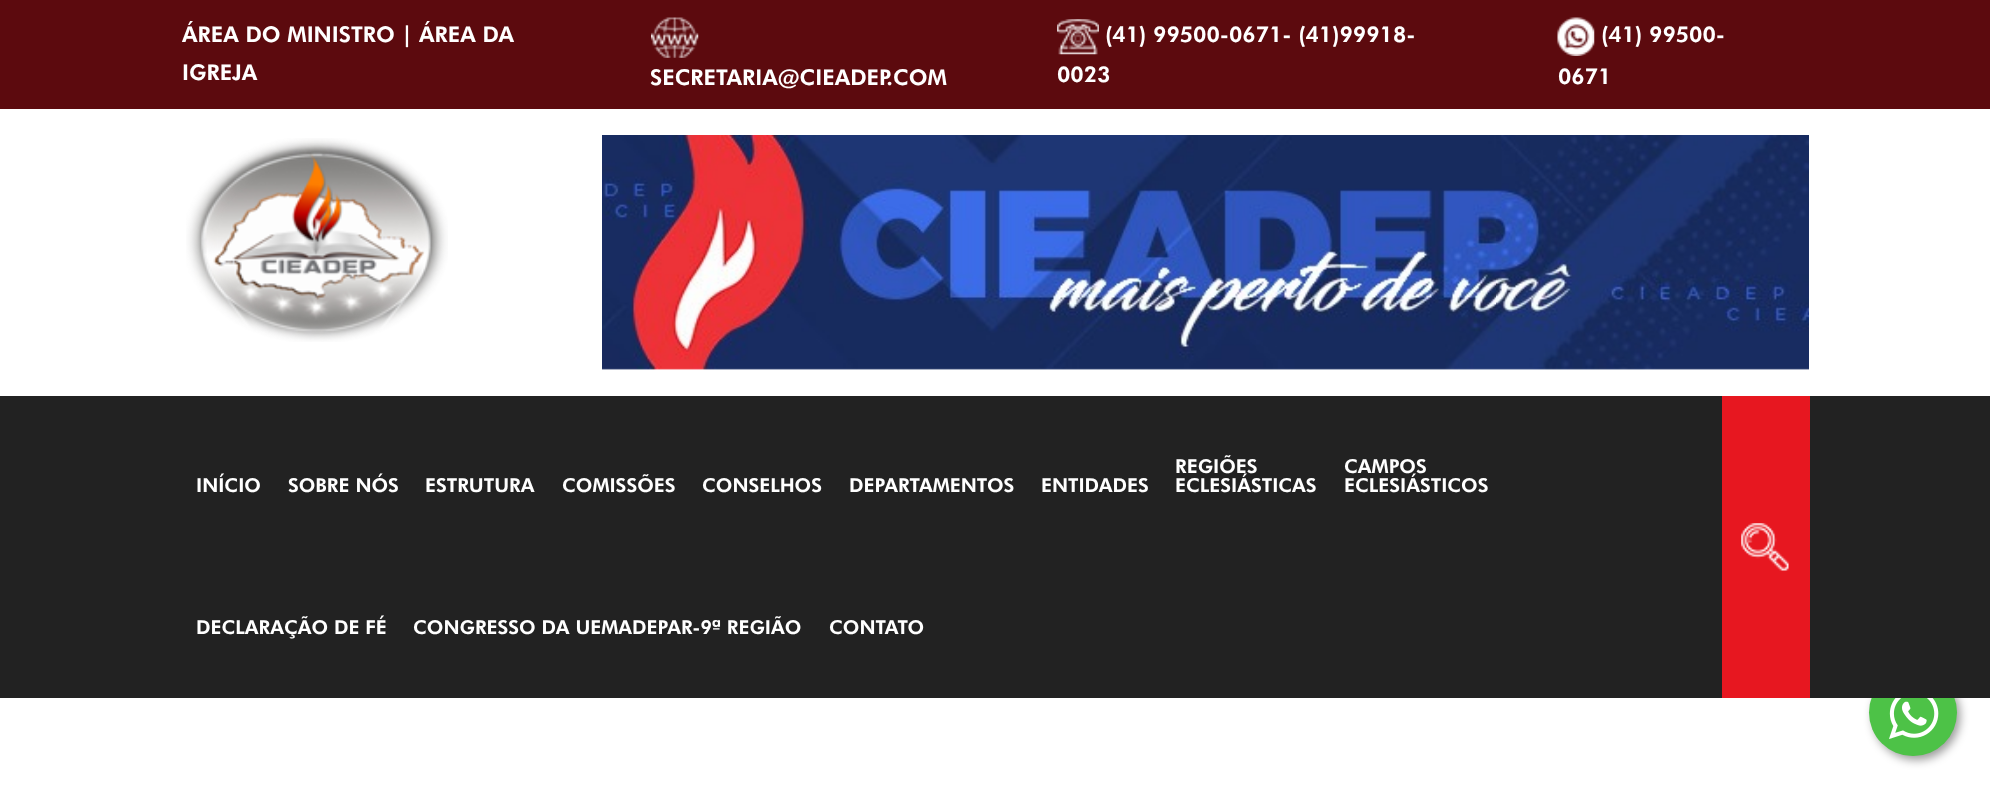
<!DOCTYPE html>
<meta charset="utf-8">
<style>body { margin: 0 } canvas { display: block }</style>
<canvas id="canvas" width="1990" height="790"></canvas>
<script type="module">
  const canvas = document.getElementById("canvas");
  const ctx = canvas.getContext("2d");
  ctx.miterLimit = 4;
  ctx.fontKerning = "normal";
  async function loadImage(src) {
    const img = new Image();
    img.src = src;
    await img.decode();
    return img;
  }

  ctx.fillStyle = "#ffffff";
  ctx.fillRect(0, 0, 1990, 790);
  ctx.fillStyle = "#5c0a0e";
  ctx.fillRect(0, 0, 1990, 109);
  ctx.font = "900 21.8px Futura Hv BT";
  ctx.fillStyle = "#ffffff";
  ctx.fillText("ÁREA DO MINISTRO | ÁREA DA", 182, 42);
  ctx.fillText("IGREJA", 182, 80);
  ctx.drawImage(await loadImage("img1.png"), 651, 17, 48, 41);
  ctx.fillText("SECRETARIA@CIEADEP.COM", 650, 85);
  ctx.drawImage(await loadImage("img2.png"), 1057, 19, 42, 36);
  ctx.fillText("(41) 99500-0671- (41)99918-", 1105, 42);
  ctx.fillText("0023", 1057, 82);
  ctx.drawImage(await loadImage("img3.png"), 1557, 17, 38, 39);
  ctx.fillText("(41) 99500-", 1601, 42);
  ctx.fillText("0671", 1558, 84);
  ctx.drawImage(await loadImage("img4.png"), 186, 138, 262, 204);
  ctx.drawImage(await loadImage("img5.png"), 602, 135, 1207, 235);
  ctx.fillStyle = "rgba(0, 0, 0, 0.4)";
  ctx.filter = "blur(5px)";
  ctx.beginPath();
  ctx.roundRect(1873, 672, 87, 88, 43.5);
  ctx.fill();
  ctx.filter = "none";
  ctx.fillStyle = "#4dc247";
  ctx.beginPath();
  ctx.roundRect(1869, 669, 88, 87, 43.5);
  ctx.fill();
  ctx.fillStyle = "#222222";
  ctx.fillRect(0, 396, 1990, 302);
  ctx.font = "900 19.25px Futura Hv BT";
  ctx.fillStyle = "#ffffff";
  ctx.fillText("INÍCIO", 196, 492);
  ctx.fillText("SOBRE NÓS", 288, 492);
  ctx.fillText("ESTRUTURA", 425, 492);
  ctx.fillText("COMISSÕES", 562, 492);
  ctx.fillText("CONSELHOS", 702, 492);
  ctx.fillText("DEPARTAMENTOS", 849, 492);
  ctx.fillText("ENTIDADES", 1041, 492);
  ctx.fillText("REGIÕES", 1175, 473);
  ctx.fillText("ECLESIÁSTICAS", 1175, 492);
  ctx.fillText("CAMPOS", 1344, 473);
  ctx.fillText("ECLESIÁSTICOS", 1344, 492);
  ctx.fillText("DECLARAÇÃO DE FÉ", 196, 634);
  ctx.fillText("CONGRESSO DA UEMADEPAR-9ª REGIÃO", 413, 634);
  ctx.fillText("CONTATO", 829, 634);
  ctx.fillStyle = "#e71720";
  ctx.fillRect(1722, 396, 88, 302);
  ctx.drawImage(await loadImage("img6.png"), 1741, 523, 48, 48);
  ctx.drawImage(await loadImage("img7.png"), 1889, 698, 50, 41);
</script>
